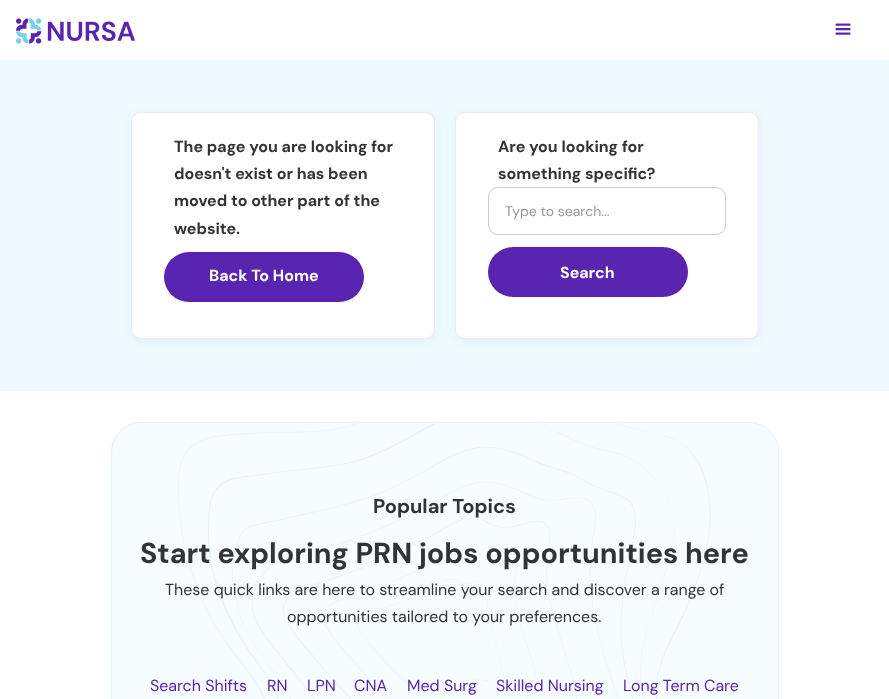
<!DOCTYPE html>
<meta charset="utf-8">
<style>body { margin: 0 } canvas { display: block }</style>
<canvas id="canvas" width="889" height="699"></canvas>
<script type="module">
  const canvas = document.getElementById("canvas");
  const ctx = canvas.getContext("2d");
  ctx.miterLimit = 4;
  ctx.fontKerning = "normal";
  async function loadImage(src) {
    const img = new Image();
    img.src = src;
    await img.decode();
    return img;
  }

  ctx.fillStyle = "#ffffff";
  ctx.fillRect(0, 0, 889, 699);
  ctx.drawImage(await loadImage("img1.png"), 16, 18, 119, 26);
  ctx.drawImage(await loadImage("img2.png"), 835, 23, 16, 12);
  ctx.fillStyle = "#effaff";
  ctx.fillRect(0, 60, 889, 331);
  ctx.fillStyle = "rgba(25, 93, 194, 0.07)";
  ctx.filter = "blur(5px)";
  ctx.beginPath();
  ctx.roundRect(131, 114, 304, 227, 10);
  ctx.fill();
  ctx.filter = "none";
  ctx.fillStyle = "#ffffff";
  ctx.beginPath();
  ctx.roundRect(131.5, 112.5, 303, 226, 9.5);
  ctx.fill();
  ctx.strokeStyle = "#e9eaf3";
  ctx.stroke();
  ctx.font = "bold 16px DM Sans";
  ctx.fillStyle = "#333333";
  ctx.fillText("The page you are looking for", 174, 152);
  ctx.fillText("doesn't exist or has been", 174, 179);
  ctx.fillText("moved to other part of the", 174, 206);
  ctx.fillText("website.", 174, 234);
  ctx.fillStyle = "#5924b0";
  ctx.beginPath();
  ctx.roundRect(164, 252, 200, 50, 25);
  ctx.fill();
  ctx.fillStyle = "#ffffff";
  ctx.fillText("Back To Home", 209, 281);
  ctx.fillStyle = "rgba(25, 93, 194, 0.07)";
  ctx.filter = "blur(5px)";
  ctx.beginPath();
  ctx.roundRect(455, 114, 304, 227, 10);
  ctx.fill();
  ctx.filter = "none";
  ctx.fillStyle = "#ffffff";
  ctx.beginPath();
  ctx.roundRect(455.5, 112.5, 303, 226, 9.5);
  ctx.fill();
  ctx.stroke();
  ctx.fillStyle = "#333333";
  ctx.fillText("Are you looking for", 498, 152);
  ctx.fillText("something specific?", 498, 179);
  ctx.beginPath();
  ctx.roundRect(488.5, 187.5, 237, 47, 9.5);
  ctx.strokeStyle = "#cccccc";
  ctx.stroke();
  ctx.font = "14px DM Sans";
  ctx.fillStyle = "#999999";
  ctx.fillText("Type to search...", 505, 216);
  ctx.fillStyle = "#5924b0";
  ctx.beginPath();
  ctx.roundRect(488, 247, 200, 50, 25);
  ctx.fill();
  ctx.font = "bold 16px DM Sans";
  ctx.fillStyle = "#ffffff";
  ctx.fillText("Search", 560, 278);
  ctx.fillStyle = "#f7fcfe";
  ctx.beginPath();
  ctx.roundRect(111, 422, 668, 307, 30);
  ctx.fill();
  ctx.drawImage(await loadImage("img3.png"), 178, 423, 533, 276);
  ctx.beginPath();
  ctx.roundRect(111.5, 422.5, 667, 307, 29.5);
  ctx.strokeStyle = "#dff4fd";
  ctx.stroke();
  ctx.font = "bold 20px DM Sans";
  ctx.fillStyle = "#333333";
  ctx.fillText("Popular Topics", 373, 513);
  ctx.font = "bold 28.8px DM Sans";
  ctx.fillText("Start exploring PRN jobs opportunities here", 140, 563);
  ctx.font = "16px DM Sans";
  ctx.fillText("These quick links are here to streamline your search and discover a range of", 165, 595);
  ctx.fillText("opportunities tailored to your preferences.", 287, 622);
  ctx.fillStyle = "#5924b0";
  ctx.fillText("Search Shifts", 150, 691);
  ctx.fillText("RN", 267, 691);
  ctx.fillText("LPN", 307, 691);
  ctx.fillText("CNA", 354, 691);
  ctx.fillText("Med Surg", 407, 691);
  ctx.fillText("Skilled Nursing", 496, 691);
  ctx.fillText("Long Term Care", 623, 691);
</script>
